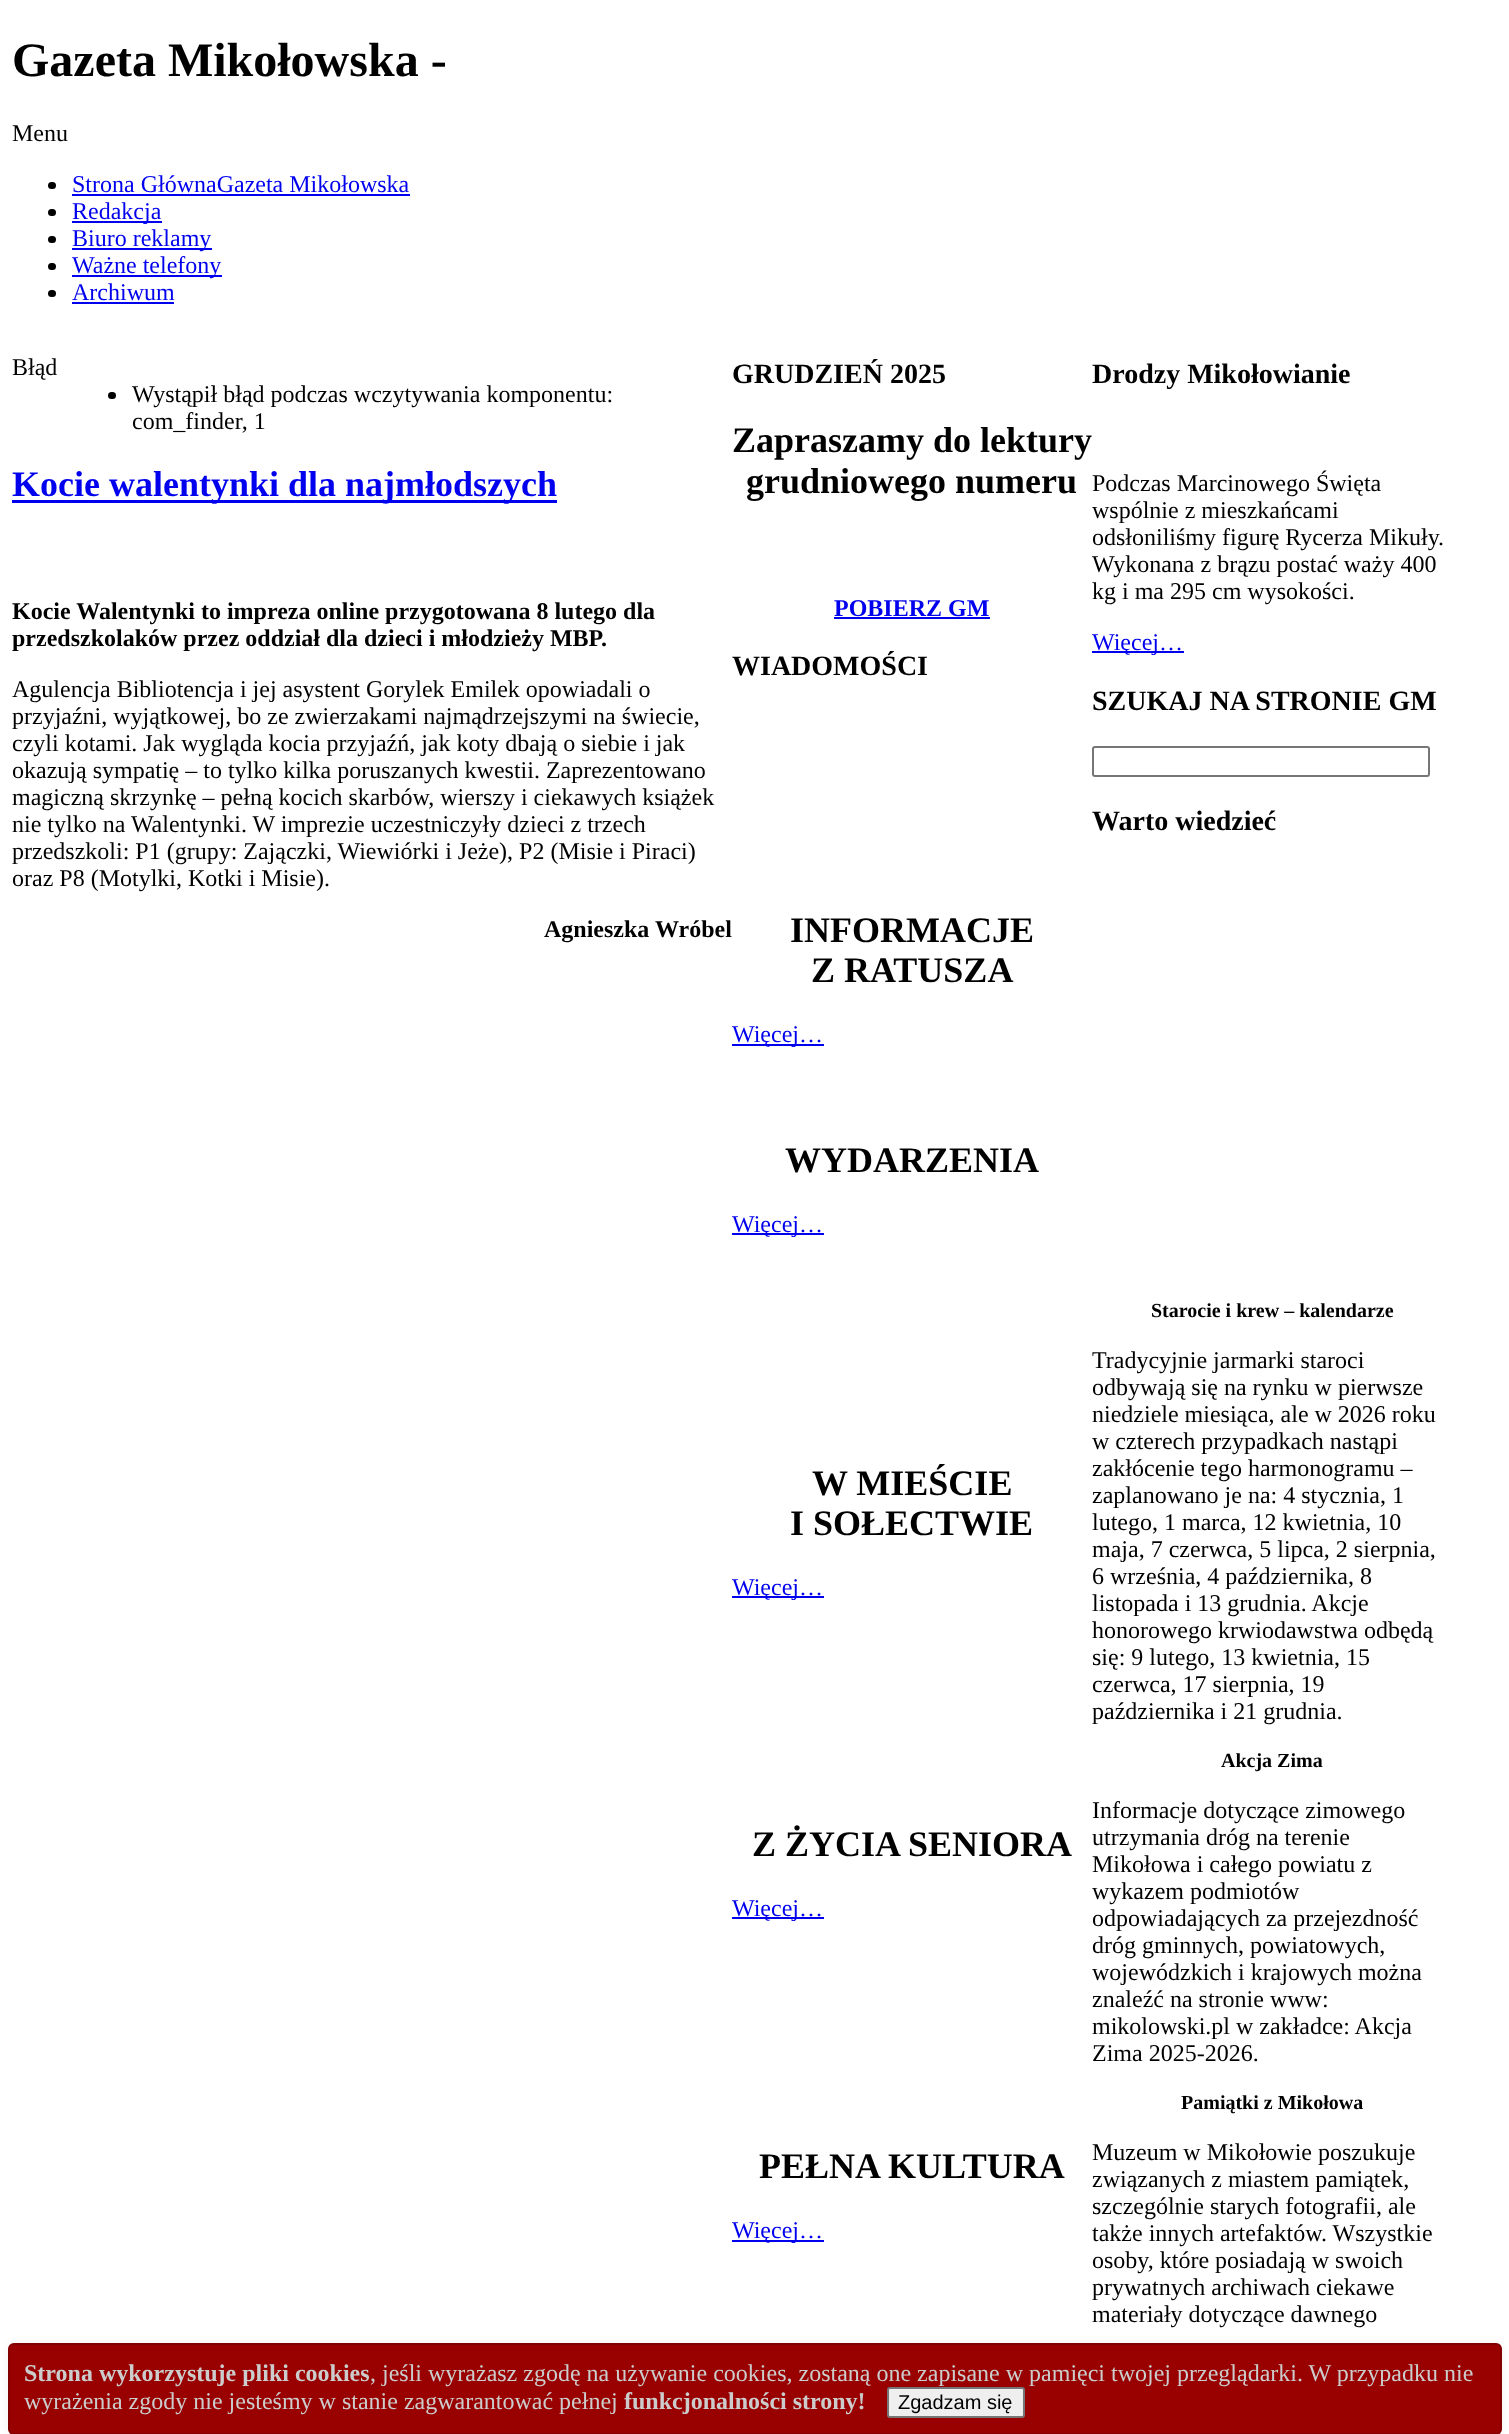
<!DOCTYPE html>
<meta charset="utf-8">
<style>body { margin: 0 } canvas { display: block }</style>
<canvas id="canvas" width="1509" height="2434"></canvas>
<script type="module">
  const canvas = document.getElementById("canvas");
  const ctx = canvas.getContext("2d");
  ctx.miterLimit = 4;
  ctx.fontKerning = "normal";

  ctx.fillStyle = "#ffffff";
  ctx.fillRect(0, 0, 1509, 2434);
  ctx.font = "bold 48px Liberation Serif";
  ctx.fillStyle = "#000000";
  ctx.fillText("Gazeta Mikołowska -", 12, 76);
  ctx.font = "24px Liberation Serif";
  ctx.fillText("Menu", 12, 141);
  ctx.beginPath();
  ctx.roundRect(48, 182, 8, 7, 3.5);
  ctx.fill();
  ctx.fillStyle = "#0000ee";
  ctx.fillText("Strona GłównaGazeta Mikołowska", 72, 192);
  ctx.fillRect(72, 194, 338, 2);
  ctx.fillStyle = "#000000";
  ctx.beginPath();
  ctx.roundRect(48, 209, 8, 7, 3.5);
  ctx.fill();
  ctx.fillStyle = "#0000ee";
  ctx.fillRect(72, 221, 90, 2);
  ctx.fillText("Redakcja", 72, 219);
  ctx.fillStyle = "#000000";
  ctx.beginPath();
  ctx.roundRect(48, 236, 8, 7, 3.5);
  ctx.fill();
  ctx.fillStyle = "#0000ee";
  ctx.fillRect(72, 248, 140, 2);
  ctx.fillText("Biuro reklamy", 72, 246);
  ctx.fillStyle = "#000000";
  ctx.beginPath();
  ctx.roundRect(48, 263, 8, 7, 3.5);
  ctx.fill();
  ctx.fillStyle = "#0000ee";
  ctx.fillRect(72, 275, 150, 2);
  ctx.fillText("Ważne telefony", 72, 273);
  ctx.fillStyle = "#000000";
  ctx.beginPath();
  ctx.roundRect(48, 290, 8, 7, 3.5);
  ctx.fill();
  ctx.fillStyle = "#0000ee";
  ctx.fillText("Archiwum", 72, 300);
  ctx.fillRect(72, 302, 102, 2);
  ctx.fillStyle = "#000000";
  ctx.fillText("Błąd", 12, 375);
  ctx.beginPath();
  ctx.roundRect(108, 392, 8, 7, 3.5);
  ctx.fill();
  ctx.fillText("Wystąpił błąd podczas wczytywania komponentu:", 132, 402);
  ctx.fillText("com_finder, 1", 132, 429);
  ctx.fillStyle = "#0000ee";
  ctx.fillRect(12, 500, 545, 3);
  ctx.font = "bold 36px Liberation Serif";
  ctx.fillText("Kocie walentynki dla najmłodszych", 12, 496);
  ctx.font = "bold 24px Liberation Serif";
  ctx.fillStyle = "#000000";
  ctx.fillText("Kocie Walentynki to impreza online przygotowana 8 lutego dla", 12, 619);
  ctx.fillText("przedszkolaków przez oddział dla dzieci i młodzieży MBP.", 12, 646);
  ctx.font = "24px Liberation Serif";
  ctx.fillText("Agulencja Bibliotencja i jej asystent Gorylek Emilek opowiadali o", 12, 697);
  ctx.fillText("przyjaźni, wyjątkowej, bo ze zwierzakami najmądrzejszymi na świecie,", 12, 724);
  ctx.fillText("czyli kotami. Jak wygląda kocia przyjaźń, jak koty dbają o siebie i jak", 12, 751);
  ctx.fillText("okazują sympatię – to tylko kilka poruszanych kwestii. Zaprezentowano", 12, 778);
  ctx.fillText("magiczną skrzynkę – pełną kocich skarbów, wierszy i ciekawych książek", 12, 805);
  ctx.fillText("nie tylko na Walentynki. W imprezie uczestniczyły dzieci z trzech", 12, 832);
  ctx.fillText("przedszkoli: P1 (grupy: Zajączki, Wiewiórki i Jeże), P2 (Misie i Piraci)", 12, 859);
  ctx.fillText("oraz P8 (Motylki, Kotki i Misie).", 12, 886);
  ctx.font = "bold 24px Liberation Serif";
  ctx.fillText("Agnieszka Wróbel", 544, 937);
  ctx.font = "bold 28px Liberation Serif";
  ctx.fillText("GRUDZIEŃ 2025", 732, 383);
  ctx.font = "bold 36px Liberation Serif";
  ctx.fillText("Zapraszamy do lektury", 732, 452);
  ctx.fillText("grudniowego numeru", 746, 493);
  ctx.font = "bold 24px Liberation Serif";
  ctx.fillStyle = "#0000ee";
  ctx.fillText("POBIERZ GM", 834, 616);
  ctx.fillRect(834, 617, 156, 2);
  ctx.font = "bold 28px Liberation Serif";
  ctx.fillStyle = "#000000";
  ctx.fillText("WIADOMOŚCI", 732, 675);
  ctx.font = "bold 36px Liberation Serif";
  ctx.fillText("INFORMACJE", 790, 942);
  ctx.fillText("Z RATUSZA", 811, 982);
  ctx.fillStyle = "#0000ee";
  ctx.fillRect(732, 1044, 92, 2);
  ctx.font = "24px Liberation Serif";
  ctx.fillText("Więcej…", 732, 1042);
  ctx.font = "bold 36px Liberation Serif";
  ctx.fillStyle = "#000000";
  ctx.fillText("WYDARZENIA", 785, 1172);
  ctx.fillStyle = "#0000ee";
  ctx.fillRect(732, 1233, 92, 2);
  ctx.font = "24px Liberation Serif";
  ctx.fillText("Więcej…", 732, 1232);
  ctx.font = "bold 36px Liberation Serif";
  ctx.fillStyle = "#000000";
  ctx.fillText("W MIEŚCIE", 812, 1495);
  ctx.fillText("I SOŁECTWIE", 790, 1535);
  ctx.fillStyle = "#0000ee";
  ctx.fillRect(732, 1596, 92, 2);
  ctx.font = "24px Liberation Serif";
  ctx.fillText("Więcej…", 732, 1595);
  ctx.font = "bold 36px Liberation Serif";
  ctx.fillStyle = "#000000";
  ctx.fillText("Z ŻYCIA SENIORA", 752, 1856);
  ctx.fillStyle = "#0000ee";
  ctx.fillRect(732, 1917, 92, 2);
  ctx.font = "24px Liberation Serif";
  ctx.fillText("Więcej…", 732, 1916);
  ctx.font = "bold 36px Liberation Serif";
  ctx.fillStyle = "#000000";
  ctx.fillText("PEŁNA KULTURA", 759, 2178);
  ctx.fillStyle = "#0000ee";
  ctx.fillRect(732, 2240, 92, 2);
  ctx.font = "24px Liberation Serif";
  ctx.fillText("Więcej…", 732, 2238);
  ctx.font = "bold 28px Liberation Serif";
  ctx.fillStyle = "#000000";
  ctx.fillText("Drodzy Mikołowianie", 1092, 383);
  ctx.font = "24px Liberation Serif";
  ctx.fillText("Podczas Marcinowego Święta", 1092, 491);
  ctx.fillText("wspólnie z mieszkańcami", 1092, 518);
  ctx.fillText("odsłoniliśmy figurę Rycerza Mikuły.", 1092, 545);
  ctx.fillText("Wykonana z brązu postać waży 400", 1092, 572);
  ctx.fillText("kg i ma 295 cm wysokości.", 1092, 599);
  ctx.fillStyle = "#0000ee";
  ctx.fillRect(1092, 651, 92, 2);
  ctx.fillText("Więcej…", 1092, 650);
  ctx.font = "bold 28px Liberation Serif";
  ctx.fillStyle = "#000000";
  ctx.fillText("SZUKAJ NA STRONIE GM", 1092, 710);
  ctx.beginPath();
  ctx.roundRect(1093, 747, 336, 29, 2);
  ctx.strokeStyle = "#767676";
  ctx.lineWidth = 2;
  ctx.stroke();
  ctx.fillText("Warto wiedzieć", 1092, 830);
  ctx.font = "bold 20px Liberation Serif";
  ctx.fillText("Starocie i krew – kalendarze", 1151, 1317);
  ctx.font = "24px Liberation Serif";
  ctx.fillText("Tradycyjnie jarmarki staroci", 1092, 1368);
  ctx.fillText("odbywają się na rynku w pierwsze", 1092, 1395);
  ctx.fillText("niedziele miesiąca, ale w 2026 roku", 1092, 1422);
  ctx.fillText("w czterech przypadkach nastąpi", 1092, 1449);
  ctx.fillText("zakłócenie tego harmonogramu –", 1092, 1476);
  ctx.fillText("zaplanowano je na: 4 stycznia, 1", 1092, 1503);
  ctx.fillText("lutego, 1 marca, 12 kwietnia, 10", 1092, 1530);
  ctx.fillText("maja, 7 czerwca, 5 lipca, 2 sierpnia,", 1092, 1557);
  ctx.fillText("6 września, 4 października, 8", 1092, 1584);
  ctx.fillText("listopada i 13 grudnia. Akcje", 1092, 1611);
  ctx.fillText("honorowego krwiodawstwa odbędą", 1092, 1638);
  ctx.fillText("się: 9 lutego, 13 kwietnia, 15", 1092, 1665);
  ctx.fillText("czerwca, 17 sierpnia, 19", 1092, 1692);
  ctx.fillText("października i 21 grudnia.", 1092, 1719);
  ctx.font = "bold 20px Liberation Serif";
  ctx.fillText("Akcja Zima", 1221, 1767);
  ctx.font = "24px Liberation Serif";
  ctx.fillText("Informacje dotyczące zimowego", 1092, 1818);
  ctx.fillText("utrzymania dróg na terenie", 1092, 1845);
  ctx.fillText("Mikołowa i całego powiatu z", 1092, 1872);
  ctx.fillText("wykazem podmiotów", 1092, 1899);
  ctx.fillText("odpowiadających za przejezdność", 1092, 1926);
  ctx.fillText("dróg gminnych, powiatowych,", 1092, 1953);
  ctx.fillText("wojewódzkich i krajowych można", 1092, 1980);
  ctx.fillText("znaleźć na stronie www:", 1092, 2007);
  ctx.fillText("mikolowski.pl w zakładce: Akcja", 1092, 2034);
  ctx.fillText("Zima 2025-2026.", 1092, 2061);
  ctx.font = "bold 20px Liberation Serif";
  ctx.fillText("Pamiątki z Mikołowa", 1181, 2109);
  ctx.font = "24px Liberation Serif";
  ctx.fillText("Muzeum w Mikołowie poszukuje", 1092, 2160);
  ctx.fillText("związanych z miastem pamiątek,", 1092, 2187);
  ctx.fillText("szczególnie starych fotografii, ale", 1092, 2214);
  ctx.fillText("także innych artefaktów. Wszystkie", 1092, 2241);
  ctx.fillText("osoby, które posiadają w swoich", 1092, 2268);
  ctx.fillText("prywatnych archiwach ciekawe", 1092, 2295);
  ctx.fillText("materiały dotyczące dawnego", 1092, 2322);
  ctx.fillStyle = "rgba(0, 0, 0, 0.05)";
  ctx.filter = "blur(4.5px)";
  ctx.beginPath();
  ctx.roundRect(8, 2343, 1494, 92, 6);
  ctx.fill();
  ctx.filter = "none";
  ctx.fillStyle = "#990000";
  ctx.beginPath();
  ctx.roundRect(8, 2343, 1494, 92, 6);
  ctx.fill();
  ctx.beginPath();
  ctx.roundRect(9, 2344, 1492, 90, 5);
  ctx.strokeStyle = "rgba(0, 0, 0, 0.15)";
  ctx.stroke();
  ctx.font = "bold 24px Liberation Serif";
  ctx.fillStyle = "#cccccc";
  ctx.fillText("Strona wykorzystuje pliki cookies", 24, 2381);
  ctx.font = "24px Liberation Serif";
  ctx.fillText(", jeśli wyrażasz zgodę na używanie cookies, zostaną one zapisane w pamięci twojej przeglądarki. W przypadku nie", 370, 2381);
  ctx.fillText("wyrażenia zgody nie jesteśmy w stanie zagwarantować pełnej", 24, 2409);
  ctx.font = "bold 24px Liberation Serif";
  ctx.fillText("funkcjonalności strony!", 624, 2409);
  ctx.fillStyle = "#efefef";
  ctx.beginPath();
  ctx.roundRect(888, 2388, 136, 29, 2);
  ctx.fill();
  ctx.strokeStyle = "#767676";
  ctx.stroke();
  ctx.font = "20px Liberation Sans";
  ctx.fillStyle = "#000000";
  ctx.fillText("Zgadzam się", 898, 2409);
</script>
